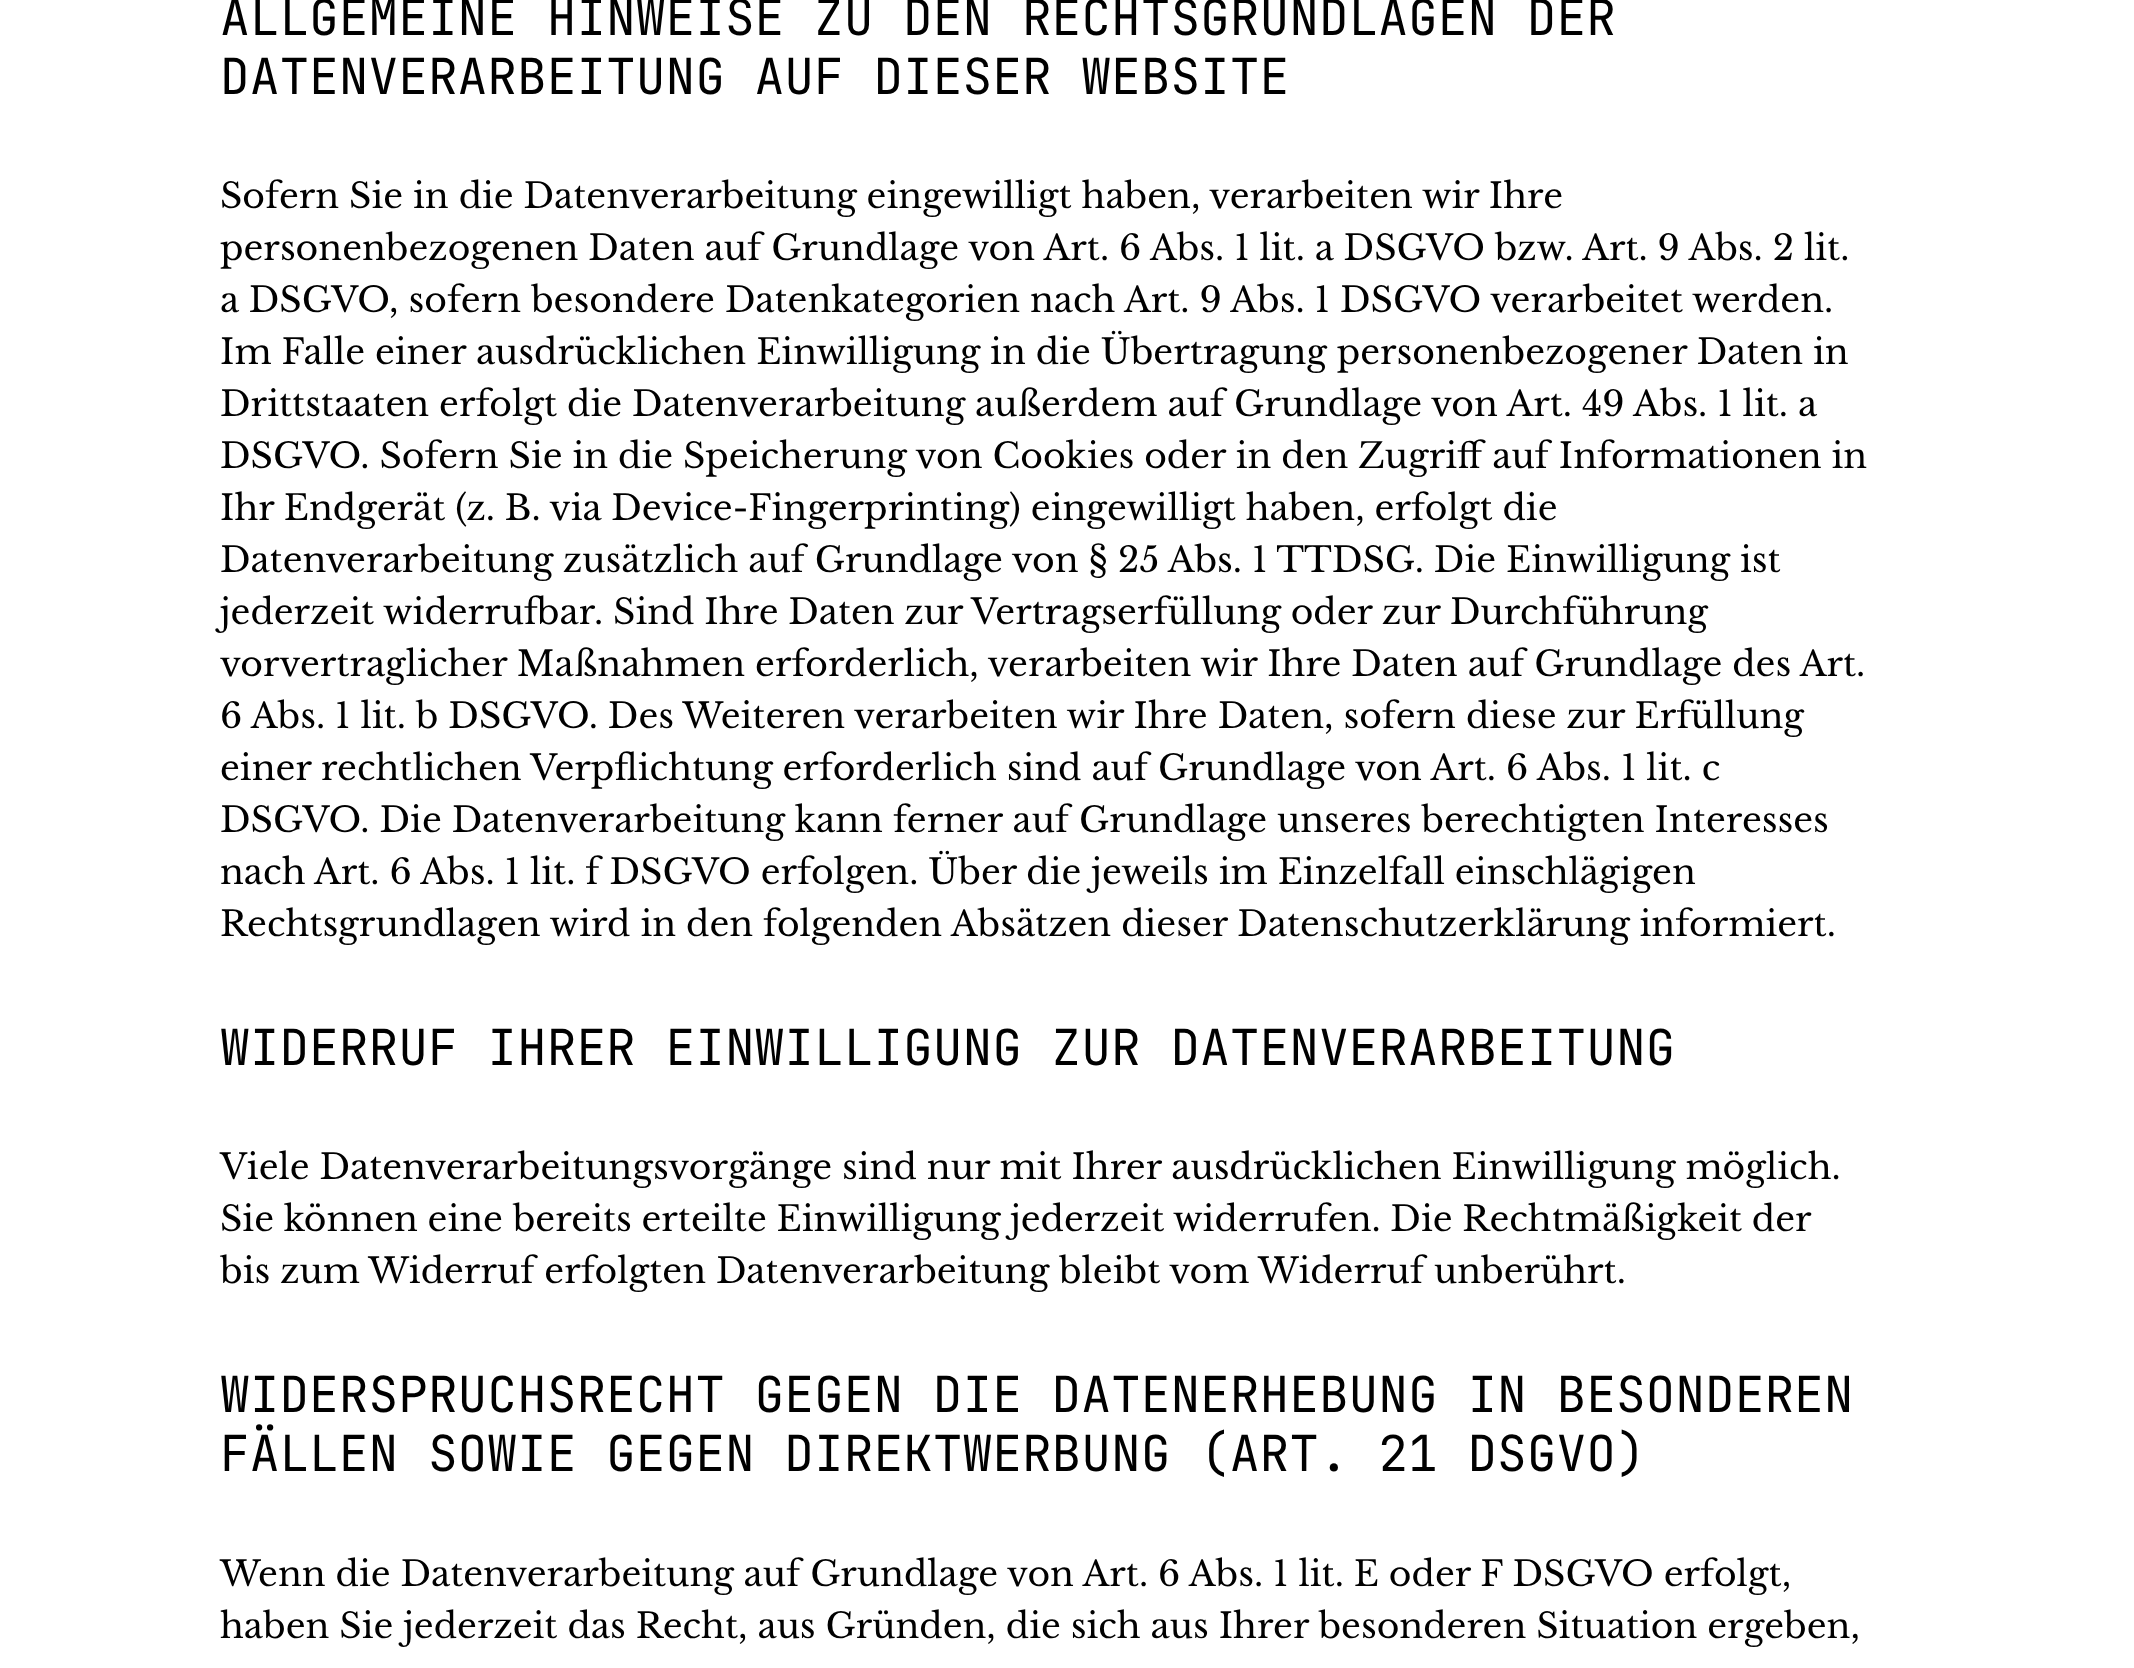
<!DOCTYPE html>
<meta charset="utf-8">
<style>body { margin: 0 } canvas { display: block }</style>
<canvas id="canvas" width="2134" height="1668"></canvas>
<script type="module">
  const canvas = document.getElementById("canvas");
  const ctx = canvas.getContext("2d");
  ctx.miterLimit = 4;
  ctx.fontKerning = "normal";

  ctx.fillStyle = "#ffffff";
  ctx.fillRect(0, 0, 2134, 1668);
  ctx.font = "49.5px JetBrains Mono";
  ctx.fillStyle = "#000000";
  ctx.fillText("ALLGEMEINE HINWEISE ZU DEN RECHTSGRUNDLAGEN DER", 220, 35);
  ctx.fillText("DATENVERARBEITUNG AUF DIESER WEBSITE", 220, 94);
  ctx.font = "34.65px Libre Baskerville";
  ctx.fillText("Sofern Sie in die Datenverarbeitung eingewilligt haben, verarbeiten wir Ihre", 220, 208);
  ctx.fillText("personenbezogenen Daten auf Grundlage von Art. 6 Abs. 1 lit. a DSGVO bzw. Art. 9 Abs. 2 lit.", 220, 260);
  ctx.fillText("a DSGVO, sofern besondere Datenkategorien nach Art. 9 Abs. 1 DSGVO verarbeitet werden.", 220, 312);
  ctx.fillText("Im Falle einer ausdrücklichen Einwilligung in die Übertragung personenbezogener Daten in", 220, 364);
  ctx.fillText("Drittstaaten erfolgt die Datenverarbeitung außerdem auf Grundlage von Art. 49 Abs. 1 lit. a", 220, 416);
  ctx.fillText("DSGVO. Sofern Sie in die Speicherung von Cookies oder in den Zugriff auf Informationen in", 220, 468);
  ctx.fillText("Ihr Endgerät (z. B. via Device-Fingerprinting) eingewilligt haben, erfolgt die", 220, 520);
  ctx.fillText("Datenverarbeitung zusätzlich auf Grundlage von § 25 Abs. 1 TTDSG. Die Einwilligung ist", 220, 572);
  ctx.wordSpacing = "-0.1px";
  ctx.fillText("jederzeit widerrufbar. Sind Ihre Daten zur Vertragserfüllung oder zur Durchführung", 220, 624);
  ctx.wordSpacing = "0px";
  ctx.fillText("vorvertraglicher Maßnahmen erforderlich, verarbeiten wir Ihre Daten auf Grundlage des Art.", 220, 676);
  ctx.fillText("6 Abs. 1 lit. b DSGVO. Des Weiteren verarbeiten wir Ihre Daten, sofern diese zur Erfüllung", 220, 728);
  ctx.fillText("einer rechtlichen Verpflichtung erforderlich sind auf Grundlage von Art. 6 Abs. 1 lit. c", 220, 780);
  ctx.fillText("DSGVO. Die Datenverarbeitung kann ferner auf Grundlage unseres berechtigten Interesses", 220, 832);
  ctx.fillText("nach Art. 6 Abs. 1 lit. f DSGVO erfolgen. Über die jeweils im Einzelfall einschlägigen", 220, 884);
  ctx.fillText("Rechtsgrundlagen wird in den folgenden Absätzen dieser Datenschutzerklärung informiert.", 220, 936);
  ctx.font = "49.5px JetBrains Mono";
  ctx.fillText("WIDERRUF IHRER EINWILLIGUNG ZUR DATENVERARBEITUNG", 220, 1065);
  ctx.font = "34.65px Libre Baskerville";
  ctx.fillText("Viele Datenverarbeitungsvorgänge sind nur mit Ihrer ausdrücklichen Einwilligung möglich.", 220, 1179);
  ctx.wordSpacing = "-0.25px";
  ctx.fillText("Sie können eine bereits erteilte Einwilligung jederzeit widerrufen. Die Rechtmäßigkeit der", 220, 1231);
  ctx.wordSpacing = "0px";
  ctx.fillText("bis zum Widerruf erfolgten Datenverarbeitung bleibt vom Widerruf unberührt.", 220, 1283);
  ctx.font = "49.5px JetBrains Mono";
  ctx.fillText("WIDERSPRUCHSRECHT GEGEN DIE DATENERHEBUNG IN BESONDEREN", 220, 1412);
  ctx.fillText("FÄLLEN SOWIE GEGEN DIREKTWERBUNG (ART. 21 DSGVO)", 220, 1471);
  ctx.font = "34.65px Libre Baskerville";
  ctx.fillText("Wenn die Datenverarbeitung auf Grundlage von Art. 6 Abs. 1 lit. E oder F DSGVO erfolgt,", 220, 1586);
  ctx.fillText("haben Sie jederzeit das Recht, aus Gründen, die sich aus Ihrer besonderen Situation ergeben,", 220, 1638);
</script>
